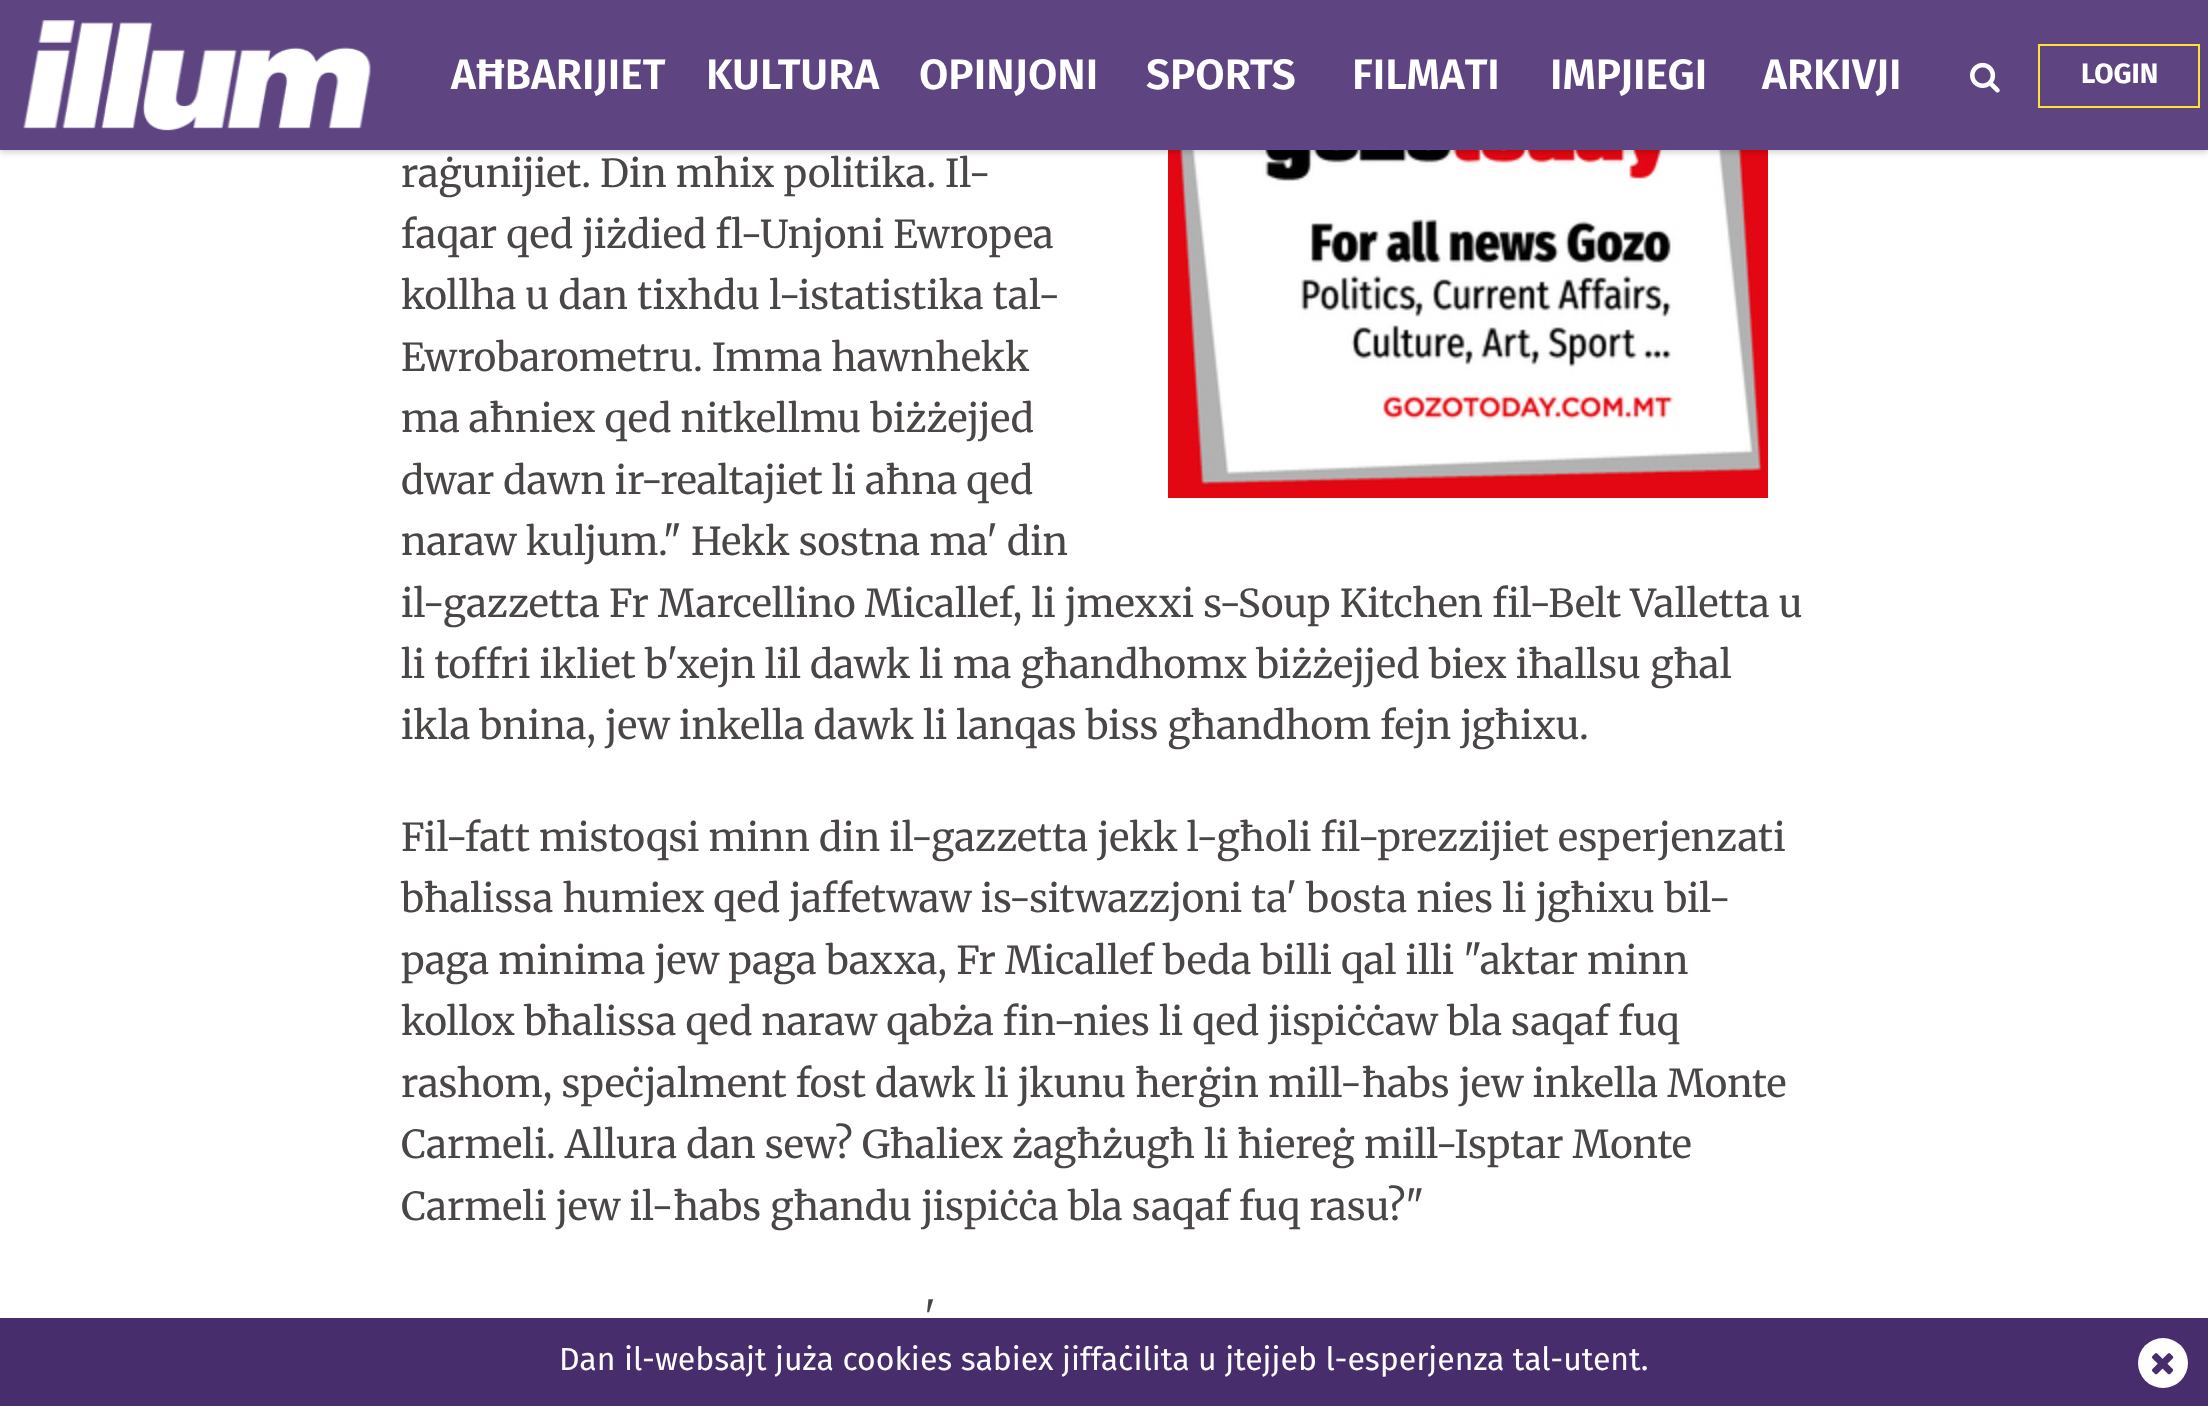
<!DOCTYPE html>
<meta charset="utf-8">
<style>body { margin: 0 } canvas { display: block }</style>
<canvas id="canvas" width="2208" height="1406"></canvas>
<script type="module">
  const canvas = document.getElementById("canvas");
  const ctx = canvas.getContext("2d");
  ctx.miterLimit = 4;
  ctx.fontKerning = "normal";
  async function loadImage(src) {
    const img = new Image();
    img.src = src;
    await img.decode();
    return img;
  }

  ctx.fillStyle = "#ffffff";
  ctx.fillRect(0, 0, 2208, 1406);
  ctx.drawImage(await loadImage("img3.png"), 1168, 150, 600, 348);
  ctx.fillStyle = "rgba(0, 0, 0, 0.2)";
  ctx.filter = "blur(3px)";
  ctx.beginPath();
  ctx.rect(0, 2, 2208, 150);
  ctx.fill();
  ctx.filter = "none";
  ctx.fillStyle = "#5e4581";
  ctx.fillRect(0, 0, 2208, 150);
  ctx.drawImage(await loadImage("img1.png"), 23, 20, 348, 111);
  ctx.font = "600 42.5px Fira Sans";
  ctx.fillStyle = "#ffffff";
  ctx.fillText("AĦBARIJIET", 451, 89);
  ctx.fillText("KULTURA", 706, 89);
  ctx.fillText("OPINJONI", 919, 89);
  ctx.fillText("SPORTS", 1146, 89);
  ctx.fillText("FILMATI", 1352, 89);
  ctx.fillText("IMPJIEGI", 1550, 89);
  ctx.fillText("ARKIVJI", 1762, 89);
  ctx.drawImage(await loadImage("img2.png"), 1970, 62, 30, 31);
  ctx.strokeStyle = "#fee234";
  ctx.lineWidth = 2;
  ctx.strokeRect(2039, 45, 160, 62);
  ctx.font = "bold 28px Fira Sans";
  ctx.fillText("LOGIN", 2081, 83);
  ctx.font = "38.4px Merriweather";
  ctx.fillStyle = "#4a4646";
  ctx.fillText("raġunijiet. Din mhix politika. Il-", 401, 187);
  ctx.fillText("faqar qed jiżdied fl-Unjoni Ewropea", 401, 248);
  ctx.fillText("kollha u dan tixhdu l-istatistika tal-", 401, 309);
  ctx.fillText("Ewrobarometru. Imma hawnhekk", 401, 371);
  ctx.fillText("ma aħniex qed nitkellmu biżżejjed", 401, 432);
  ctx.fillText("dwar dawn ir-realtajiet li aħna qed", 401, 494);
  ctx.fillText("naraw kuljum.\" Hekk sostna ma' din", 401, 555);
  ctx.fillText("il-gazzetta Fr Marcellino Micallef, li jmexxi s-Soup Kitchen fil-Belt Valletta u", 401, 617);
  ctx.fillText("li toffri ikliet b'xejn lil dawk li ma għandhomx biżżejjed biex iħallsu għal", 401, 678);
  ctx.fillText("ikla bnina, jew inkella dawk li lanqas biss għandhom fejn jgħixu.", 401, 739);
  ctx.fillText("Fil-fatt mistoqsi minn din il-gazzetta jekk l-għoli fil-prezzijiet esperjenzati", 401, 851);
  ctx.fillText("bħalissa humiex qed jaffetwaw is-sitwazzjoni ta' bosta nies li jgħixu bil-", 401, 912);
  ctx.fillText("paga minima jew paga baxxa, Fr Micallef beda billi qal illi \"aktar minn", 401, 974);
  ctx.fillText("kollox bħalissa qed naraw qabża fin-nies li qed jispiċċaw bla saqaf fuq", 401, 1035);
  ctx.fillText("rashom, speċjalment fost dawk li jkunu ħerġin mill-ħabs jew inkella Monte", 401, 1097);
  ctx.fillText("Carmeli. Allura dan sew? Għaliex żagħżugħ li ħiereġ mill-Isptar Monte", 401, 1158);
  ctx.fillText("Carmeli jew il-ħabs għandu jispiċċa bla saqaf fuq rasu?\"", 401, 1220);
  ctx.fillText("'", 924, 1331);
  ctx.fillStyle = "#482d6d";
  ctx.fillRect(0, 1318, 2208, 88);
  ctx.font = "32px Fira Sans";
  ctx.fillStyle = "#ffffff";
  ctx.fillText("Dan il-websajt juża cookies sabiex jiffaċilita u jtejjeb l-esperjenza tal-utent.", 559, 1370);
  ctx.beginPath();
  ctx.arc(2163, 1363, 25, 0, Math.PI * 2);
  ctx.fill();
  ctx.drawImage(await loadImage("img4.png"), 2152, 1353, 22, 22);
</script>
